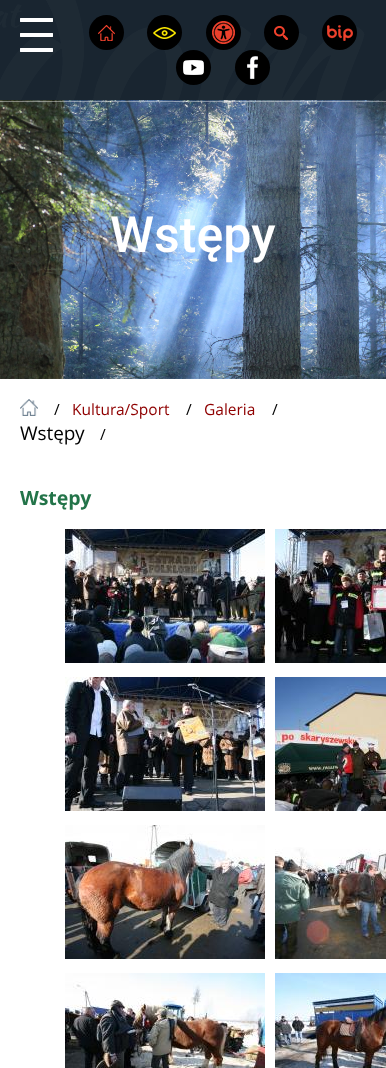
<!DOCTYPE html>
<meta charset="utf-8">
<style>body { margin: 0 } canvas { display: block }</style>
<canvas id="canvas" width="386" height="1068"></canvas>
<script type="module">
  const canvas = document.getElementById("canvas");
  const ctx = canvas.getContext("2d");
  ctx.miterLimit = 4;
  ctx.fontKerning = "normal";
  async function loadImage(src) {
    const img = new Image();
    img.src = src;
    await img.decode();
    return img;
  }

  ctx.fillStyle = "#ffffff";
  ctx.fillRect(0, 0, 386, 1068);
  ctx.fillStyle = "#192530";
  ctx.fillRect(0, 0, 386, 100);
  ctx.drawImage(await loadImage("img1.png"), 0, 0, 386, 100);
  ctx.drawImage(await loadImage("img2.png"), 20, 18, 33, 34);
  ctx.fillStyle = "#000000";
  ctx.beginPath();
  ctx.arc(106.5, 32.5, 17.5, 0, Math.PI * 2);
  ctx.fill();
  ctx.drawImage(await loadImage("img3.png"), 98, 25, 17, 16);
  ctx.beginPath();
  ctx.arc(164.5, 32.5, 17.5, 0, Math.PI * 2);
  ctx.fill();
  ctx.drawImage(await loadImage("img4.png"), 153, 27, 23, 12);
  ctx.beginPath();
  ctx.arc(223.5, 32.5, 17.5, 0, Math.PI * 2);
  ctx.fill();
  ctx.drawImage(await loadImage("img5.png"), 212, 21, 23, 23);
  ctx.beginPath();
  ctx.arc(281.5, 32.5, 17.5, 0, Math.PI * 2);
  ctx.fill();
  ctx.drawImage(await loadImage("img6.png"), 274, 26, 14, 14);
  ctx.beginPath();
  ctx.arc(339.5, 32.5, 17.5, 0, Math.PI * 2);
  ctx.fill();
  ctx.drawImage(await loadImage("img7.png"), 327, 25, 26, 16);
  ctx.beginPath();
  ctx.arc(193.5, 67.5, 17.5, 0, Math.PI * 2);
  ctx.fill();
  ctx.drawImage(await loadImage("img8.png"), 183, 60, 21, 15);
  ctx.beginPath();
  ctx.arc(252.5, 67.5, 17.5, 0, Math.PI * 2);
  ctx.fill();
  ctx.drawImage(await loadImage("img9.png"), 247, 56, 11, 23);
  ctx.drawImage(await loadImage("img10.png"), 0, 100, 386, 279);
  ctx.fillStyle = "rgba(255, 255, 255, 0.4)";
  ctx.fillRect(0, 101, 386, 1);
  ctx.font = "500 50px Roboto";
  ctx.fillStyle = "#ffffff";
  ctx.fillText("Wstępy", 110, 252);
  ctx.drawImage(await loadImage("img11.png"), 20, 399, 18, 17);
  ctx.font = "15.5px Open Sans";
  ctx.fillStyle = "#000000";
  ctx.fillText("/", 54, 415);
  ctx.fillStyle = "#8f0000";
  ctx.fillText("Kultura/Sport", 72, 415);
  ctx.fillStyle = "#000000";
  ctx.fillText("/", 186, 415);
  ctx.fillStyle = "#8f0000";
  ctx.fillText("Galeria", 204, 415);
  ctx.fillStyle = "#000000";
  ctx.fillText("/", 272, 415);
  ctx.font = "19px Open Sans";
  ctx.fillText("Wstępy", 20, 440);
  ctx.font = "15.5px Open Sans";
  ctx.fillText("/", 100, 440);
  ctx.font = "bold 19.5px Open Sans";
  ctx.fillStyle = "#237449";
  ctx.fillText("Wstępy", 20, 505);
  ctx.drawImage(await loadImage("img12.png"), 65, 529, 200, 134);
  ctx.drawImage(await loadImage("img13.png"), 275, 529, 111, 134);
  ctx.drawImage(await loadImage("img14.png"), 65, 677, 200, 134);
  ctx.drawImage(await loadImage("img15.png"), 275, 677, 111, 134);
  ctx.drawImage(await loadImage("img16.png"), 65, 825, 200, 134);
  ctx.drawImage(await loadImage("img17.png"), 275, 847, 111, 112);
  ctx.drawImage(await loadImage("img18.png"), 65, 973, 200, 95);
  ctx.drawImage(await loadImage("img19.png"), 275, 973, 111, 95);
</script>
